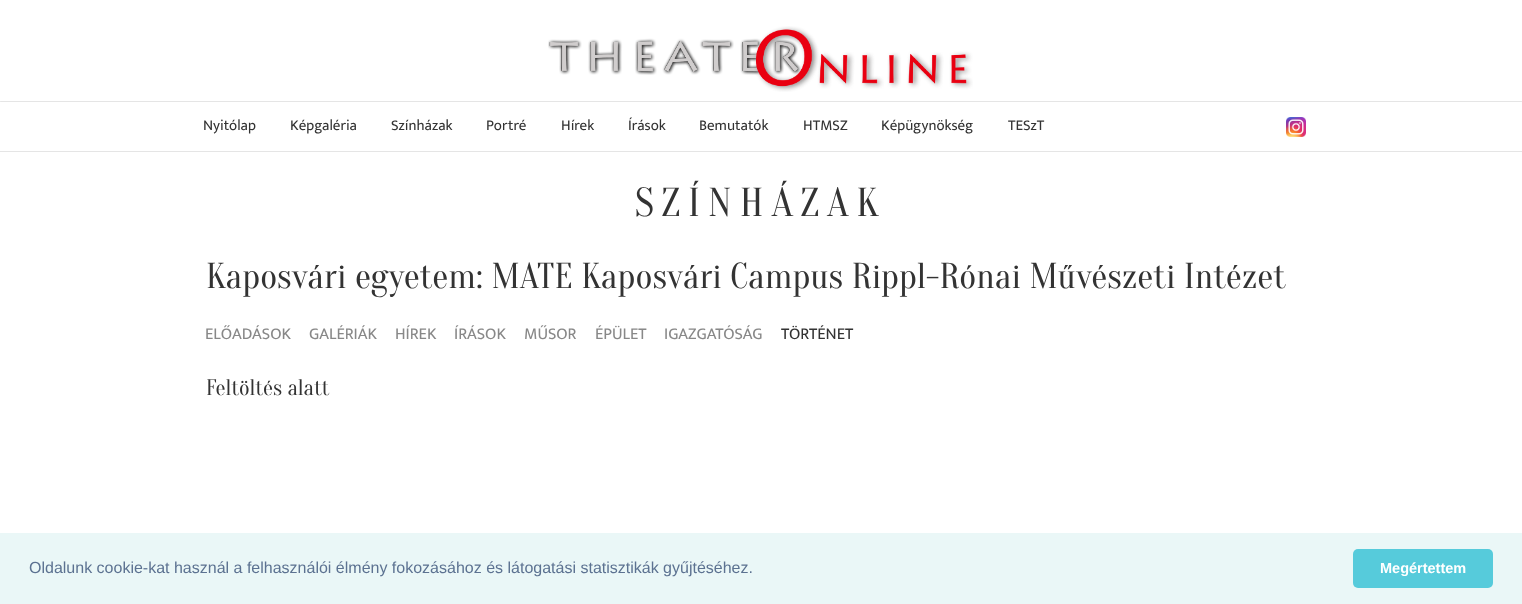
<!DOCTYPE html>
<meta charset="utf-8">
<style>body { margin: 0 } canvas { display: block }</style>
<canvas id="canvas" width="1522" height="604"></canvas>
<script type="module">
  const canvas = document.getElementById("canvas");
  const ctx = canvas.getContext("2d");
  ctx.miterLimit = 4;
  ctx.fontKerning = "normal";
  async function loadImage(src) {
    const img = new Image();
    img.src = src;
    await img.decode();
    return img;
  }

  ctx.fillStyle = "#ffffff";
  ctx.fillRect(0, 0, 1522, 604);
  ctx.fillStyle = "#e5e5e5";
  ctx.fillRect(0, 151, 1522, 1);
  ctx.beginPath();
  ctx.roundRect(0, 101, 1522, 1, 0.5);
  ctx.fill();
  ctx.drawImage(await loadImage("img1.png"), 548, 26, 425, 66);
  ctx.font = "15px Mukta Vaani";
  ctx.fillStyle = "#333333";
  ctx.fillText("Nyitólap", 203, 130);
  ctx.fillText("Képgaléria", 290, 130);
  ctx.fillText("Színházak", 391, 130);
  ctx.fillText("Portré", 486, 130);
  ctx.fillText("Hírek", 561, 130);
  ctx.fillText("Írások", 628, 130);
  ctx.fillText("Bemutatók", 699, 130);
  ctx.fillText("HTMSZ", 803, 130);
  ctx.fillText("Képügynökség", 881, 130);
  ctx.fillText("TESzT", 1008, 130);
  ctx.drawImage(await loadImage("img2.png"), 1286, 117, 20, 20);
  ctx.letterSpacing = "8px";
  ctx.font = "40.5px Oranienbaum";
  ctx.fillText("SZÍNHÁZAK", 635, 216);
  ctx.letterSpacing = "0px";
  ctx.font = "36px Oranienbaum";
  ctx.fillText("Kaposvári egyetem: MATE Kaposvári Campus Rippl-Rónai Művészeti Intézet", 206, 288);
  ctx.font = "16.5px Mukta Vaani";
  ctx.fillStyle = "#888888";
  ctx.fillText("ELŐADÁSOK", 205, 339);
  ctx.fillText("GALÉRIÁK", 309, 339);
  ctx.fillText("HÍREK", 395, 339);
  ctx.fillText("ÍRÁSOK", 454, 339);
  ctx.fillText("MŰSOR", 524, 339);
  ctx.fillText("ÉPÜLET", 595, 339);
  ctx.fillText("IGAZGATÓSÁG", 664, 339);
  ctx.fillStyle = "#333333";
  ctx.fillText("TÖRTÉNET", 781, 339);
  ctx.font = "22.5px Oranienbaum";
  ctx.fillText("Feltöltés alatt", 206, 395);
  ctx.fillStyle = "#eaf7f7";
  ctx.fillRect(0, 533, 1522, 71);
  ctx.font = "16px Liberation Sans";
  ctx.fillStyle = "#5c7291";
  ctx.fillText("Oldalunk cookie-kat használ a felhasználói élmény fokozásához és látogatási statisztikák gyűjtéséhez.", 29, 573);
  ctx.fillStyle = "#56cbdb";
  ctx.beginPath();
  ctx.roundRect(1353, 549, 140, 39, 5);
  ctx.fill();
  ctx.font = "bold 14.5px Liberation Sans";
  ctx.fillStyle = "#ffffff";
  ctx.fillText("Megértettem", 1380, 573);
</script>
